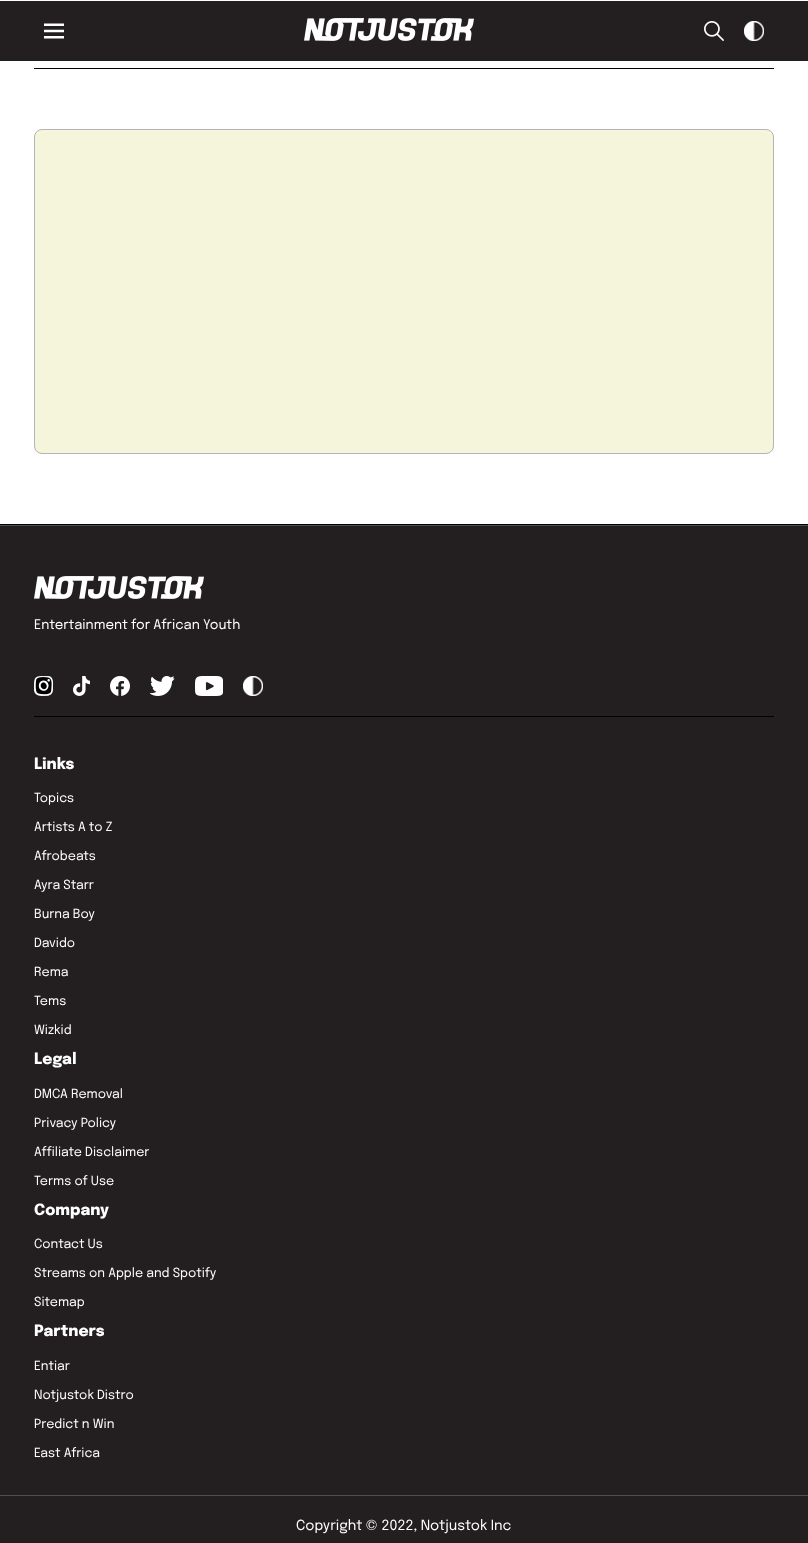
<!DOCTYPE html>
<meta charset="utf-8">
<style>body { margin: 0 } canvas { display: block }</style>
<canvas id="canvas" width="808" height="1543"></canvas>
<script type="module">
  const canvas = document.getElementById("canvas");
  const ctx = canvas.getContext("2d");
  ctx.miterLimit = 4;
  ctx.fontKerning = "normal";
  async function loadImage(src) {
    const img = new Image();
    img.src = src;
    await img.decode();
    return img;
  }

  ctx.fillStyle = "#ffffff";
  ctx.fillRect(0, 0, 808, 1543);
  ctx.fillStyle = "#231f20";
  ctx.fillRect(0, 1, 808, 60);
  ctx.drawImage(await loadImage("img1.png"), 44, 23, 20, 16);
  ctx.drawImage(await loadImage("img2.png"), 304, 18, 170, 23);
  ctx.drawImage(await loadImage("img3.png"), 704, 21, 20, 20);
  ctx.drawImage(await loadImage("img4.png"), 744, 21, 20, 20);
  ctx.fillStyle = "#000000";
  ctx.fillRect(0, 524, 808, 1);
  ctx.fillRect(34, 68, 740, 1);
  ctx.fillStyle = "#f5f5dc";
  ctx.beginPath();
  ctx.roundRect(34.5, 129.5, 739, 324, 7.5);
  ctx.fill();
  ctx.strokeStyle = "#b5b5b5";
  ctx.stroke();
  ctx.fillStyle = "#231f20";
  ctx.fillRect(0, 526, 808, 1017);
  ctx.fillStyle = "#4e4e4e";
  ctx.fillRect(0, 525, 808, 1);
  ctx.fillStyle = "#000000";
  ctx.fillRect(34, 716, 740, 1);
  ctx.drawImage(await loadImage("img2.png"), 34, 576, 170, 23);
  ctx.font = "13.25px Epilogue";
  ctx.fillStyle = "#ffffff";
  ctx.fillText("Entertainment for African Youth", 34, 629);
  ctx.drawImage(await loadImage("img5.png"), 34, 676, 19, 20);
  ctx.drawImage(await loadImage("img6.png"), 73, 676, 17, 20);
  ctx.drawImage(await loadImage("img7.png"), 110, 676, 20, 20);
  ctx.drawImage(await loadImage("img8.png"), 150, 676, 25, 20);
  ctx.drawImage(await loadImage("img9.png"), 195, 676, 28, 20);
  ctx.drawImage(await loadImage("img10.png"), 243, 676, 20, 20);
  ctx.font = "800 15.5px Epilogue";
  ctx.fillText("Links", 34, 769);
  ctx.font = "12.6px Epilogue";
  ctx.fillText("Topics", 34, 802);
  ctx.fillText("Artists A to Z", 34, 831);
  ctx.fillText("Afrobeats", 34, 860);
  ctx.fillText("Ayra Starr", 34, 889);
  ctx.fillText("Burna Boy", 34, 918);
  ctx.fillText("Davido", 34, 947);
  ctx.fillText("Rema", 34, 976);
  ctx.fillText("Tems", 34, 1005);
  ctx.fillText("Wizkid", 34, 1034);
  ctx.font = "800 15.5px Epilogue";
  ctx.fillText("Legal", 34, 1064);
  ctx.font = "12.6px Epilogue";
  ctx.fillText("DMCA Removal", 34, 1098);
  ctx.fillText("Privacy Policy", 34, 1127);
  ctx.fillText("Affiliate Disclaimer", 34, 1156);
  ctx.fillText("Terms of Use", 34, 1185);
  ctx.font = "800 15.5px Epilogue";
  ctx.fillText("Company", 34, 1215);
  ctx.font = "12.6px Epilogue";
  ctx.fillText("Contact Us", 34, 1248);
  ctx.fillText("Streams on Apple and Spotify", 34, 1277);
  ctx.fillText("Sitemap", 34, 1306);
  ctx.font = "800 15.5px Epilogue";
  ctx.fillText("Partners", 34, 1336);
  ctx.font = "12.6px Epilogue";
  ctx.fillText("Entiar", 34, 1370);
  ctx.fillText("Notjustok Distro", 34, 1399);
  ctx.fillText("Predict n Win", 34, 1428);
  ctx.fillText("East Africa", 34, 1457);
  ctx.fillStyle = "#4e4e4e";
  ctx.fillRect(0, 1495, 808, 1);
  ctx.font = "14px Epilogue";
  ctx.fillStyle = "#ffffff";
  ctx.fillText("Copyright © 2022, Notjustok Inc", 296, 1530);
</script>
